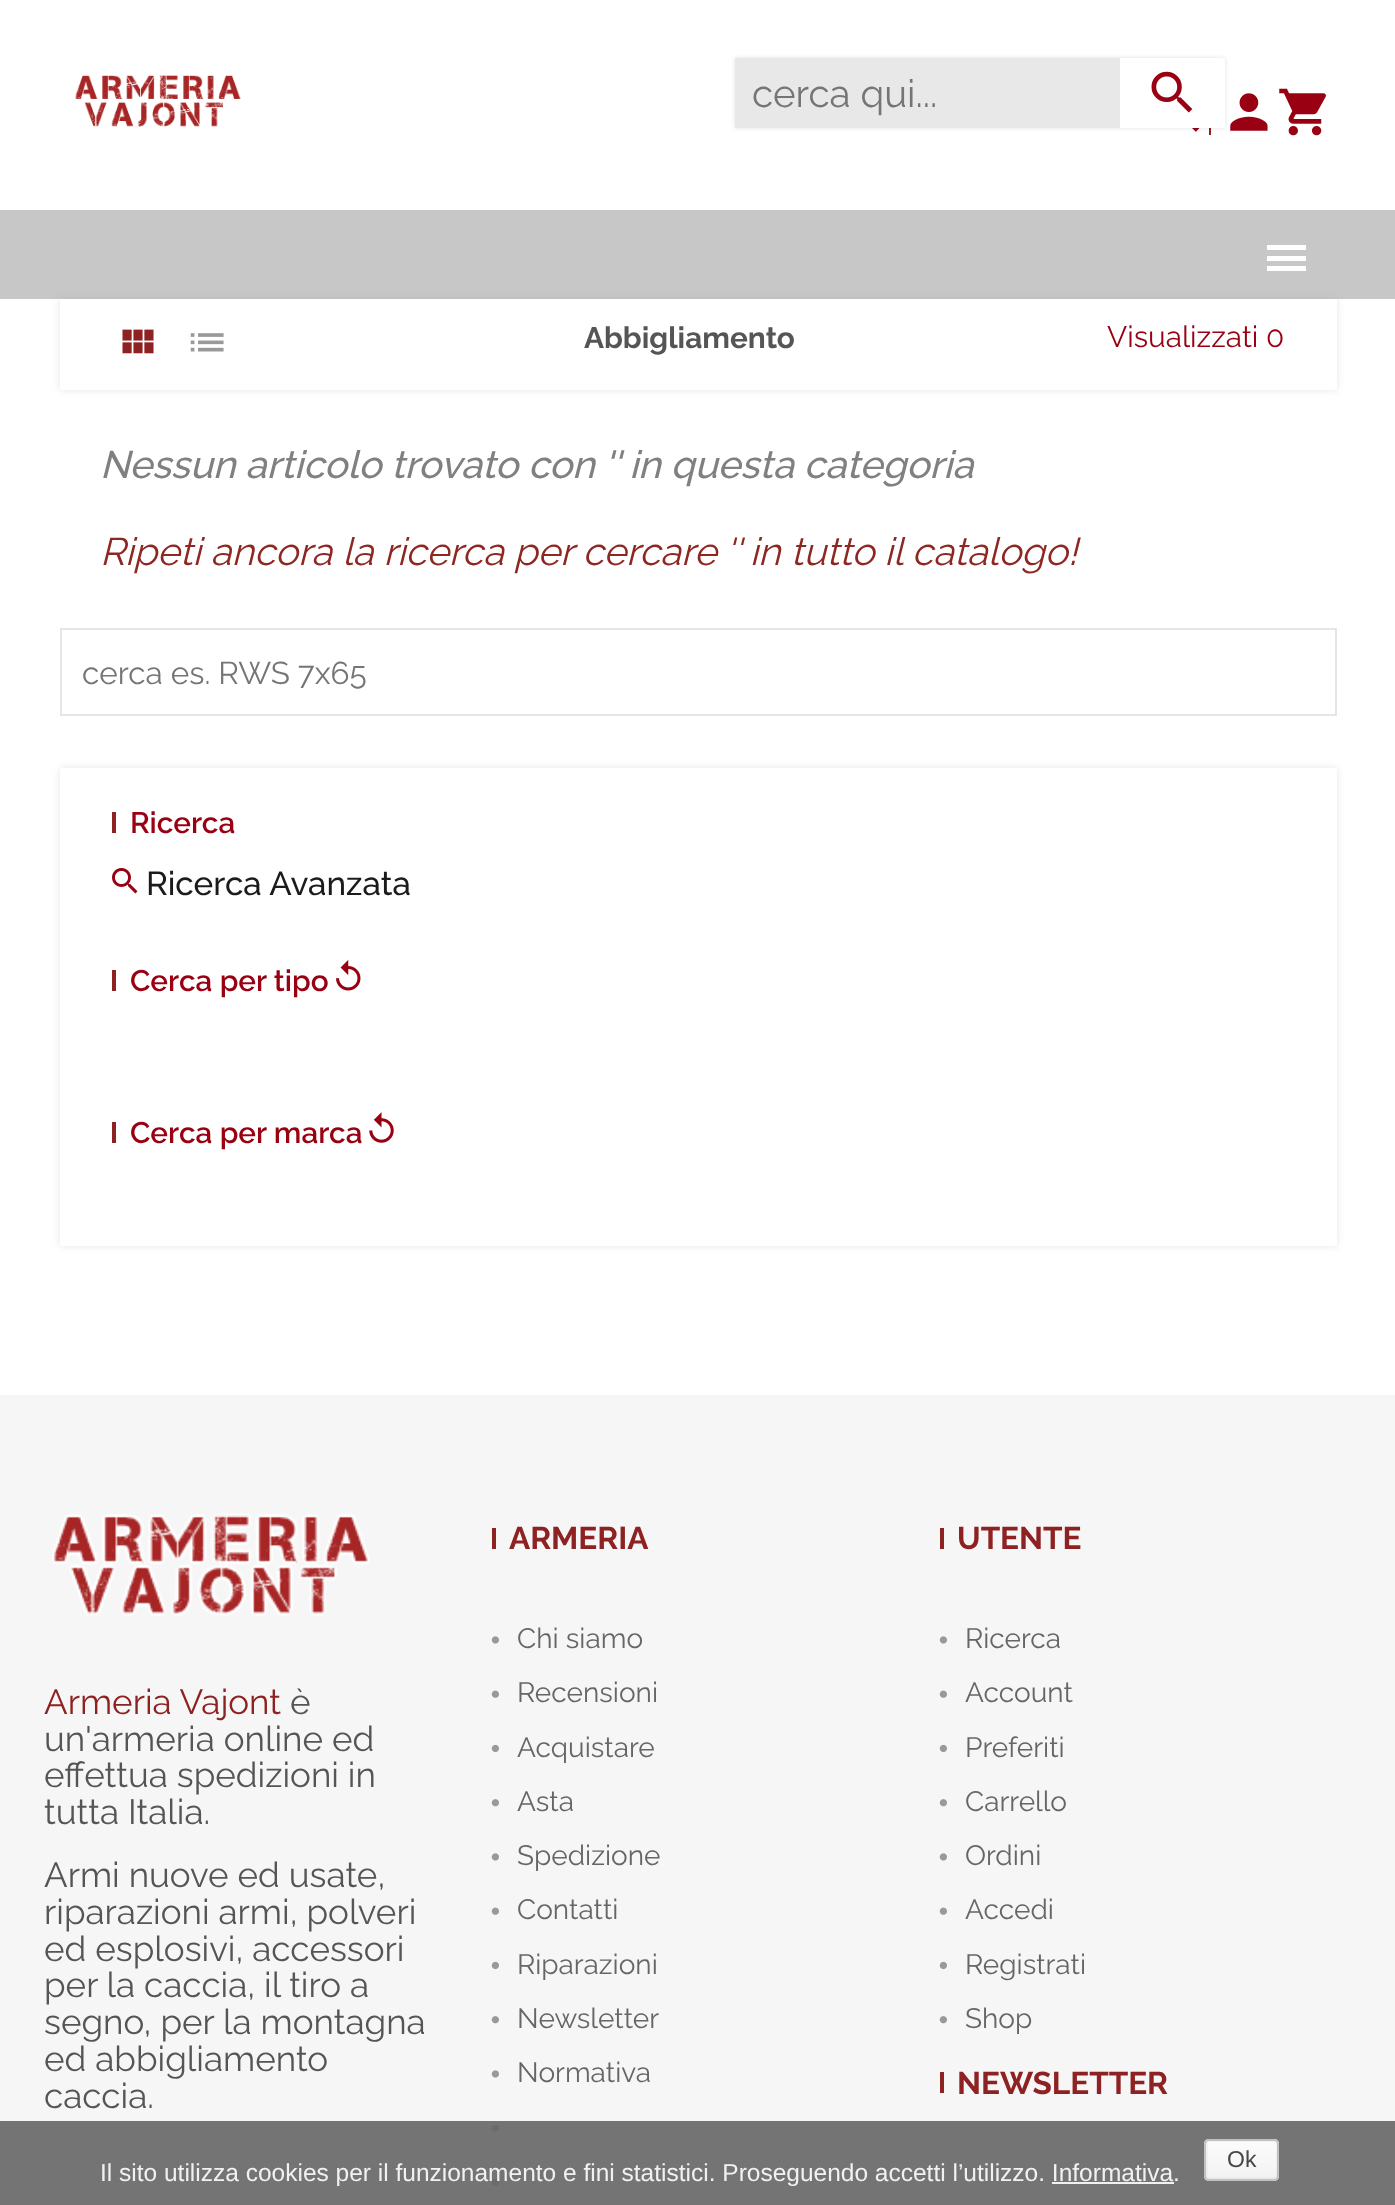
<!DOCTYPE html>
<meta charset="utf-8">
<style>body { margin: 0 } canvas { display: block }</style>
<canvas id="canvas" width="1395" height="2205"></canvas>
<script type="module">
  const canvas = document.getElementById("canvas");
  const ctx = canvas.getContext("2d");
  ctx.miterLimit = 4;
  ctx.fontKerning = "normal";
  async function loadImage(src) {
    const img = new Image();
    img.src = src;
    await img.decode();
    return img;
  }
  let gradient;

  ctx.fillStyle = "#ffffff";
  ctx.fillRect(0, 0, 1395, 2205);
  ctx.drawImage(await loadImage("img1.png"), 75, 74, 166, 53);
  ctx.drawImage(await loadImage("img3.png"), 1192, 128, 8, 4);
  ctx.fillStyle = "#8e2121";
  ctx.fillRect(1209, 128, 2, 7);
  ctx.fillStyle = "rgba(0, 0, 0, 0.12)";
  ctx.filter = "blur(2px)";
  ctx.beginPath();
  ctx.rect(735, 58, 490, 70);
  ctx.fill();
  ctx.filter = "none";
  ctx.fillStyle = "#e8e8e9";
  ctx.fillRect(735, 58, 385, 70);
  ctx.font = "38.5px Raleway";
  ctx.fillStyle = "#757575";
  ctx.fillText("cerca qui...", 752, 107);
  ctx.fillStyle = "#ffffff";
  ctx.fillRect(1120, 58, 105, 70);
  ctx.drawImage(await loadImage("img2.png"), 1151, 71, 42, 42);
  ctx.drawImage(await loadImage("img4.png"), 1230, 93, 38, 38);
  ctx.drawImage(await loadImage("img5.png"), 1279, 88, 47, 48);
  ctx.fillStyle = "#c8c7c7";
  ctx.fillRect(0, 210, 1395, 89);
  ctx.fillStyle = "#ffffff";
  ctx.fillRect(1267, 245, 39, 5);
  ctx.fillRect(1267, 256, 39, 5);
  ctx.fillRect(1267, 266, 39, 5);
  ctx.save();
  ctx.beginPath();
  ctx.moveTo(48, 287);
  ctx.lineTo(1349, 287);
  ctx.lineTo(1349, 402);
  ctx.lineTo(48, 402);
  ctx.closePath();
  ctx.moveTo(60, 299);
  ctx.lineTo(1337, 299);
  ctx.lineTo(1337, 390);
  ctx.lineTo(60, 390);
  ctx.closePath();
  ctx.clip("evenodd");
  ctx.fillStyle = "rgba(150, 149, 149, 0.25)";
  ctx.filter = "blur(3.5px)";
  ctx.beginPath();
  ctx.rect(60, 299, 1277, 91);
  ctx.fill();
  ctx.filter = "none";
  ctx.restore();
  ctx.drawImage(await loadImage("img6.png"), 122, 329, 32, 25);
  ctx.drawImage(await loadImage("img7.png"), 190, 333, 34, 19);
  ctx.font = "bold 29.75px Raleway";
  ctx.fillStyle = "#575454";
  ctx.fillText("Abbigliamento", 584, 348);
  ctx.font = "29.75px Raleway";
  ctx.fillStyle = "#990012";
  ctx.fillText("Visualizzati 0", 1107, 347);
  ctx.font = "italic 500 38.5px Raleway";
  ctx.fillStyle = "#808080";
  ctx.fillText("Nessun articolo trovato con '' in questa categoria", 100, 478);
  ctx.font = "italic 38.5px Raleway";
  ctx.fillStyle = "#8e2721";
  ctx.fillText("Ripeti ancora la ricerca per cercare '' in tutto il catalogo!", 100, 565);
  ctx.strokeStyle = "#e7e6e6";
  ctx.lineWidth = 2;
  ctx.strokeRect(61, 629, 1275, 86);
  ctx.font = "31.5px Raleway";
  ctx.fillStyle = "#757575";
  ctx.fillText("cerca es. RWS 7x65", 82, 684);
  ctx.save();
  ctx.beginPath();
  ctx.moveTo(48, 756);
  ctx.lineTo(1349, 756);
  ctx.lineTo(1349, 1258);
  ctx.lineTo(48, 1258);
  ctx.closePath();
  ctx.moveTo(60, 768);
  ctx.lineTo(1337, 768);
  ctx.lineTo(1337, 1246);
  ctx.lineTo(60, 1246);
  ctx.closePath();
  ctx.clip("evenodd");
  ctx.fillStyle = "rgba(150, 149, 149, 0.25)";
  ctx.filter = "blur(3.5px)";
  ctx.beginPath();
  ctx.rect(60, 768, 1277, 478);
  ctx.fill();
  ctx.filter = "none";
  ctx.restore();
  ctx.fillStyle = "#8e2121";
  ctx.fillRect(112, 812, 4, 21);
  ctx.font = "600 29.75px Raleway";
  ctx.fillStyle = "#990012";
  ctx.fillText("Ricerca", 130, 833);
  ctx.drawImage(await loadImage("img8.png"), 112, 868, 26, 26);
  ctx.font = "500 33.25px Raleway";
  ctx.fillStyle = "#1c1b1b";
  ctx.fillText("Ricerca Avanzata", 146, 895);
  ctx.fillStyle = "#8e2121";
  ctx.fillRect(112, 970, 4, 21);
  ctx.font = "600 29.75px Raleway";
  ctx.fillStyle = "#990012";
  ctx.fillText("Cerca per tipo", 130, 991);
  ctx.drawImage(await loadImage("img9.png"), 336, 960, 25, 31);
  ctx.fillStyle = "#8e2121";
  ctx.fillRect(112, 1122, 4, 21);
  ctx.fillStyle = "#990012";
  ctx.fillText("Cerca per marca", 130, 1143);
  ctx.drawImage(await loadImage("img10.png"), 369, 1112, 25, 31);
  ctx.fillStyle = "#f6f6f6";
  ctx.fillRect(0, 1395, 1395, 810);
  ctx.drawImage(await loadImage("img11.png"), 52, 1514, 318, 102);
  ctx.font = "35px Raleway";
  ctx.fillStyle = "#8e2121";
  ctx.fillText("Armeria Vajont", 44, 1714);
  ctx.fillStyle = "#575454";
  ctx.fillText("è", 290, 1714);
  ctx.fillText("un'armeria online ed", 44, 1751);
  ctx.fillText("effettua spedizioni in", 44, 1787);
  ctx.fillText("tutta Italia.", 44, 1824);
  ctx.fillText("Armi nuove ed usate,", 44, 1887);
  ctx.fillText("riparazioni armi, polveri", 44, 1924);
  ctx.fillText("ed esplosivi, accessori", 44, 1961);
  ctx.fillText("per la caccia, il tiro a", 44, 1997);
  ctx.fillText("segno, per la montagna", 44, 2034);
  ctx.fillText("ed abbigliamento", 44, 2071);
  ctx.fillText("caccia.", 44, 2108);
  ctx.fillStyle = "#8e2121";
  ctx.fillRect(492, 1528, 4, 21);
  ctx.font = "bold 31.5px Raleway";
  ctx.fillText("ARMERIA", 509, 1549);
  ctx.drawImage(await loadImage("img12.png"), 491, 1636, 8, 8);
  ctx.font = "28px Raleway";
  ctx.fillStyle = "#666666";
  ctx.fillText("Chi siamo", 517, 1648);
  ctx.drawImage(await loadImage("img13.png"), 491, 1690, 8, 8);
  ctx.fillText("Recensioni", 517, 1702);
  ctx.drawImage(await loadImage("img14.png"), 491, 1744, 8, 9);
  ctx.fillText("Acquistare", 517, 1757);
  ctx.drawImage(await loadImage("img15.png"), 491, 1799, 8, 8);
  ctx.fillText("Asta", 517, 1811);
  ctx.drawImage(await loadImage("img12.png"), 491, 1853, 8, 8);
  ctx.fillText("Spedizione", 517, 1865);
  ctx.drawImage(await loadImage("img13.png"), 491, 1907, 8, 8);
  ctx.fillText("Contatti", 517, 1919);
  ctx.drawImage(await loadImage("img14.png"), 491, 1961, 8, 9);
  ctx.fillText("Riparazioni", 517, 1974);
  ctx.drawImage(await loadImage("img15.png"), 491, 2016, 8, 8);
  ctx.fillText("Newsletter", 517, 2028);
  ctx.drawImage(await loadImage("img12.png"), 491, 2070, 8, 8);
  ctx.fillText("Normativa", 517, 2082);
  ctx.drawImage(await loadImage("img13.png"), 491, 2124, 8, 8);
  ctx.drawImage(await loadImage("img14.png"), 491, 2178, 8, 9);
  ctx.fillStyle = "#8e2121";
  ctx.fillRect(940, 1528, 4, 21);
  ctx.font = "bold 31.5px Raleway";
  ctx.fillText("UTENTE", 957, 1549);
  ctx.drawImage(await loadImage("img12.png"), 939, 1636, 8, 8);
  ctx.font = "28px Raleway";
  ctx.fillStyle = "#666666";
  ctx.fillText("Ricerca", 965, 1648);
  ctx.drawImage(await loadImage("img13.png"), 939, 1690, 8, 8);
  ctx.fillText("Account", 965, 1702);
  ctx.drawImage(await loadImage("img14.png"), 939, 1744, 8, 9);
  ctx.fillText("Preferiti", 965, 1757);
  ctx.drawImage(await loadImage("img15.png"), 939, 1799, 8, 8);
  ctx.fillText("Carrello", 965, 1811);
  ctx.drawImage(await loadImage("img12.png"), 939, 1853, 8, 8);
  ctx.fillText("Ordini", 965, 1865);
  ctx.drawImage(await loadImage("img13.png"), 939, 1907, 8, 8);
  ctx.fillText("Accedi", 965, 1919);
  ctx.drawImage(await loadImage("img14.png"), 939, 1961, 8, 9);
  ctx.fillText("Registrati", 965, 1974);
  ctx.drawImage(await loadImage("img15.png"), 939, 2016, 8, 8);
  ctx.fillText("Shop", 965, 2028);
  ctx.fillStyle = "#8e2121";
  ctx.fillRect(940, 2072, 4, 21);
  ctx.font = "bold 31.5px Raleway";
  ctx.fillText("NEWSLETTER", 957, 2094);
  ctx.fillStyle = "rgba(102, 102, 102, 0.9)";
  ctx.fillRect(0, 2121, 1395, 84);
  ctx.fillStyle = "rgba(243, 243, 243, 0.9)";
  ctx.beginPath();
  ctx.roundRect(1204, 2139, 75, 42, 5);
  ctx.fill();
  ctx.save();
  ctx.beginPath();
  ctx.roundRect(1204, 2139, 75, 42, 5);
  ctx.clip();
  gradient = ctx.createLinearGradient(1242, 2102, 1242, 2140);
  gradient.addColorStop(0, "#fdfdfd");
  gradient.addColorStop(1, "#f4f4f4");
  ctx.fillStyle = gradient;
  ctx.fillRect(1204, 2139, 75, 1);
  gradient = ctx.createLinearGradient(1242, 2140, 1242, 2179);
  gradient.addColorStop(0, "rgba(254, 254, 254, 0.9)");
  gradient.addColorStop(1, "rgba(244, 244, 244, 0.9)");
  ctx.fillStyle = gradient;
  ctx.fillRect(1204, 2140, 75, 39);
  gradient = ctx.createLinearGradient(1242, 2179, 1242, 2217);
  gradient.addColorStop(0, "rgba(254, 254, 254, 0.9)");
  gradient.addColorStop(1, "rgba(244, 244, 244, 0.9)");
  ctx.fillStyle = gradient;
  ctx.fillRect(1204, 2179, 75, 2);
  ctx.restore();
  ctx.strokeStyle = "rgba(0, 0, 0, 0.03)";
  ctx.strokeRect(1207, 2141, 70, 37);
  ctx.beginPath();
  ctx.roundRect(1205, 2140, 73, 40, 4);
  ctx.strokeStyle = "rgba(187, 187, 187, 0.9)";
  ctx.stroke();
  ctx.font = "23px Liberation Sans";
  ctx.fillStyle = "#474747";
  ctx.fillText("Ok", 1227, 2167);
  ctx.font = "24.5px Liberation Sans";
  ctx.fillStyle = "#f1f1f1";
  ctx.fillText("Il sito utilizza cookies per il funzionamento e fini statistici. Proseguendo accetti l’utilizzo. Informativa.", 100, 2181);
  ctx.fillStyle = "rgba(255, 255, 255, 0.9)";
  ctx.fillRect(1052, 2182, 122, 2);
</script>
